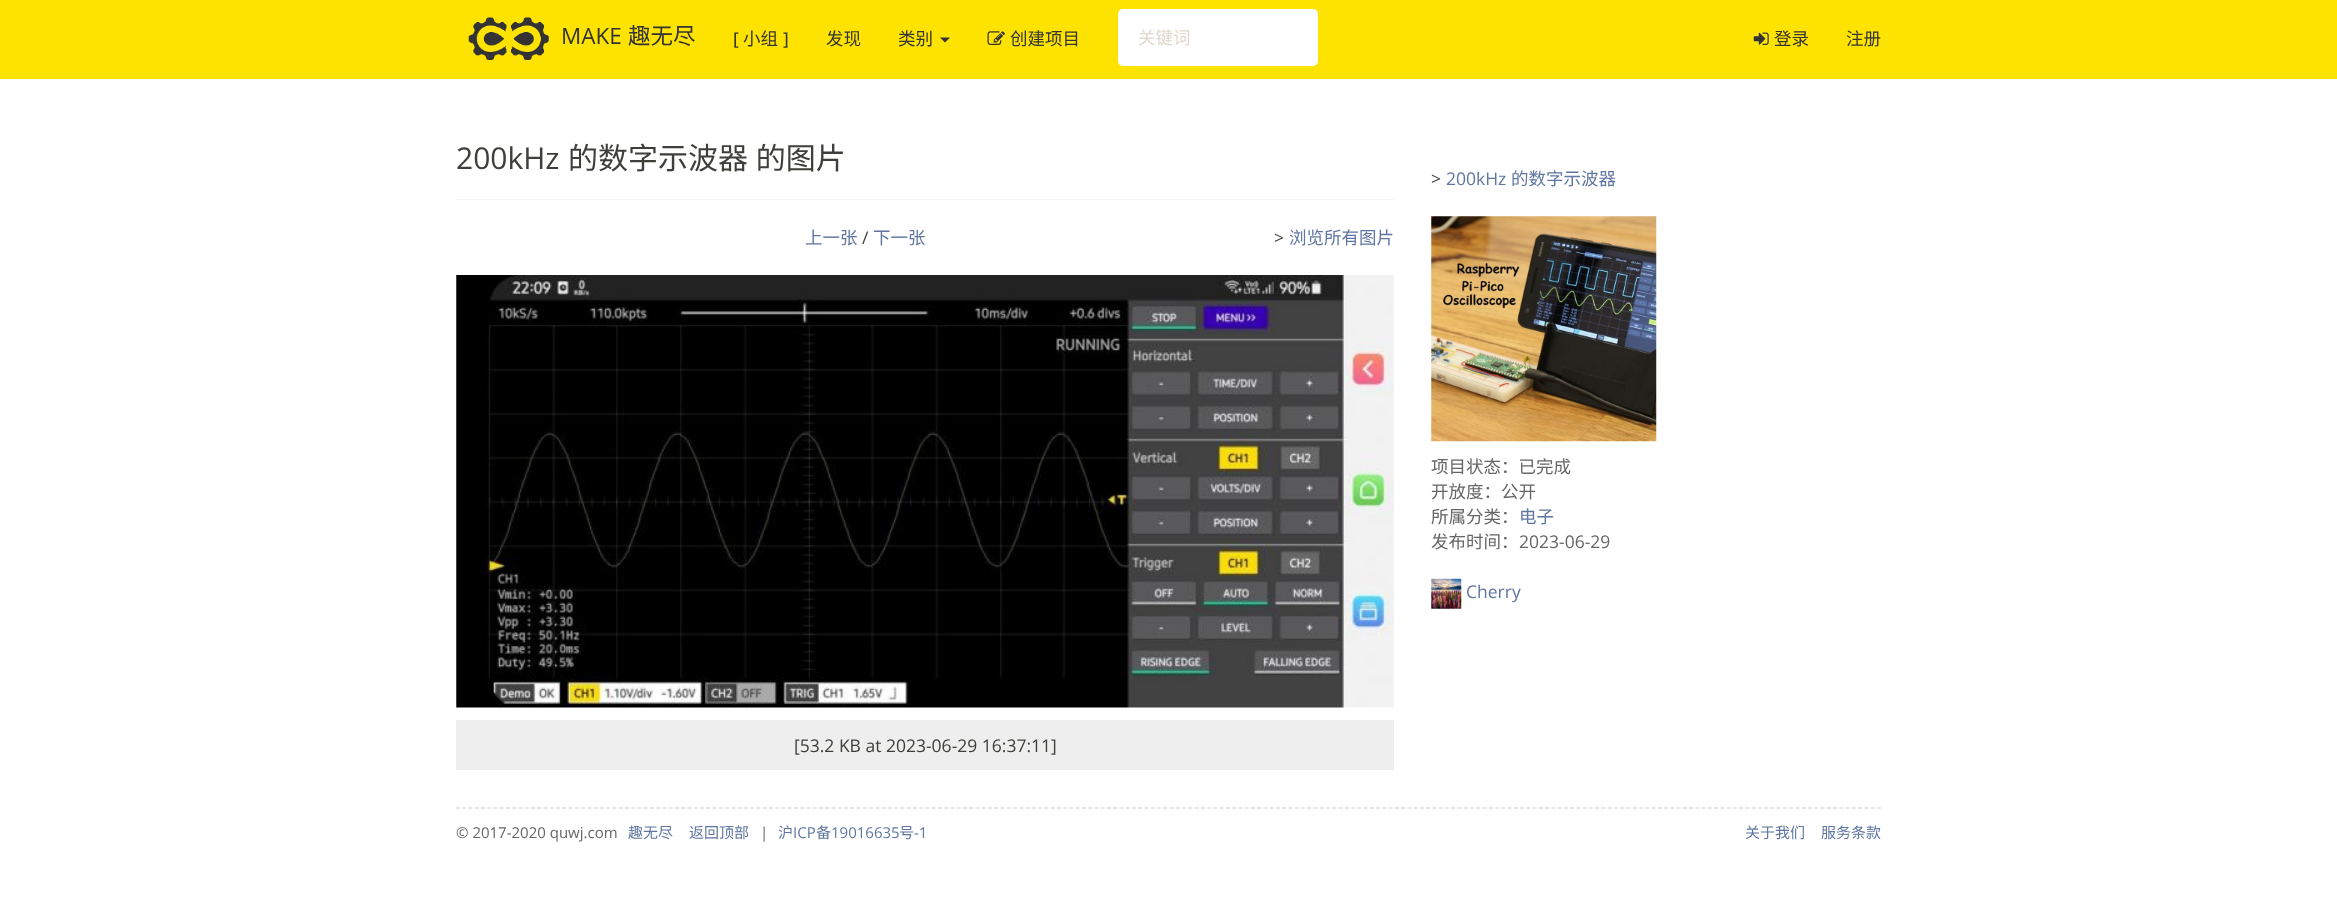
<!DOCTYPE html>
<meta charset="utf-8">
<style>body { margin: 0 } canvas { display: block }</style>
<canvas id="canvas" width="2337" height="920"></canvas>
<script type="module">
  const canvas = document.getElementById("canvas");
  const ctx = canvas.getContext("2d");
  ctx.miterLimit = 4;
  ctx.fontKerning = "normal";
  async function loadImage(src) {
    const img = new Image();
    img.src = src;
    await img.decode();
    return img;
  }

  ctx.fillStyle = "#ffffff";
  ctx.fillRect(0, 0, 2337, 920);
  ctx.fillStyle = "#ffe300";
  ctx.fillRect(0, 0, 2337, 79);
  ctx.drawImage(await loadImage("img1.png"), 468, 17, 81, 43);
  ctx.font = "22.5px Open Sans";
  ctx.fillStyle = "#333333";
  ctx.fillText("MAKE", 561, 44);
  ctx.font = "22.5px Noto Sans CJK SC";
  ctx.fillText("趣无尽", 628, 44);
  ctx.font = "500 17.5px Open Sans";
  ctx.fillText("[", 733, 45);
  ctx.font = "17.5px Noto Sans CJK SC";
  ctx.fillText("小组", 743, 45);
  ctx.font = "500 17.5px Open Sans";
  ctx.fillText("]", 783, 45);
  ctx.font = "17.5px Noto Sans CJK SC";
  ctx.fillText("发现", 826, 45);
  ctx.fillText("类别", 898, 45);
  ctx.beginPath();
  ctx.moveTo(940, 37.5);
  ctx.lineTo(950, 37.5);
  ctx.lineTo(945, 42.5);
  ctx.closePath();
  ctx.fill();
  ctx.drawImage(await loadImage("img2.png"), 987, 31, 18, 14);
  ctx.fillText("创建项目", 1010, 45);
  ctx.fillStyle = "#ffffff";
  ctx.beginPath();
  ctx.roundRect(1118, 9, 200, 57, 5);
  ctx.fill();
  ctx.fillStyle = "#dfd7ca";
  ctx.fillText("关键词", 1138, 44);
  ctx.drawImage(await loadImage("img3.png"), 1753, 32, 16, 13);
  ctx.fillStyle = "#333333";
  ctx.fillText("登录", 1774, 45);
  ctx.fillText("注册", 1846, 45);
  ctx.font = "30px Open Sans";
  ctx.fillStyle = "#3e3f3a";
  ctx.fillText("200kHz", 456, 169);
  ctx.wordSpacing = "1px";
  ctx.font = "30px Noto Sans CJK SC";
  ctx.fillText("的数字示波器 的图片", 568, 169);
  ctx.fillStyle = "#f8f5f0";
  ctx.fillRect(456, 199, 938, 1);
  ctx.wordSpacing = "0px";
  ctx.font = "17.5px Noto Sans CJK SC";
  ctx.fillStyle = "#6076a1";
  ctx.fillText("上一张", 805, 244);
  ctx.font = "17.5px Open Sans";
  ctx.fillStyle = "#3e3f3a";
  ctx.fillText("/", 862, 244);
  ctx.font = "17.5px Noto Sans CJK SC";
  ctx.fillStyle = "#6076a1";
  ctx.fillText("下一张", 873, 244);
  ctx.font = "17.5px Open Sans";
  ctx.fillStyle = "#3e3f3a";
  ctx.fillText(">", 1274, 244);
  ctx.font = "17.5px Noto Sans CJK SC";
  ctx.fillStyle = "#6076a1";
  ctx.fillText("浏览所有图片", 1289, 244);
  ctx.drawImage(await loadImage("img4.png"), 456, 275, 938, 433);
  ctx.fillStyle = "#eeeeee";
  ctx.fillRect(456, 720, 938, 50);
  ctx.font = "17.5px Open Sans";
  ctx.fillStyle = "#3e3f3a";
  ctx.fillText("[53.2 KB at 2023-06-29 16:37:11]", 794, 752);
  ctx.fillText(">", 1431, 185);
  ctx.fillStyle = "#6076a1";
  ctx.fillText("200kHz", 1446, 185);
  ctx.font = "17.5px Noto Sans CJK SC";
  ctx.fillText("的数字示波器", 1511, 185);
  ctx.drawImage(await loadImage("img5.png"), 1431, 216, 226, 226);
  ctx.fillStyle = "#666666";
  ctx.fillText("项目状态：已完成", 1431, 473);
  ctx.fillText("开放度：公开", 1431, 498);
  ctx.fillText("所属分类：", 1431, 523);
  ctx.fillStyle = "#6076a1";
  ctx.fillText("电子", 1519, 523);
  ctx.fillStyle = "#666666";
  ctx.fillText("发布时间：", 1431, 548);
  ctx.font = "17.5px Open Sans";
  ctx.fillText("2023-06-29", 1519, 548);
  ctx.drawImage(await loadImage("img6.png"), 1431, 578, 31, 31);
  ctx.fillStyle = "#6076a1";
  ctx.fillText("Cherry", 1466, 598);
  ctx.beginPath();
  ctx.moveTo(456, 808);
  ctx.lineTo(1881, 808);
  ctx.strokeStyle = "#cccccc";
  ctx.lineWidth = 1.2;
  ctx.setLineDash([3.75, 2.51]);
  ctx.stroke();
  ctx.font = "15px Open Sans";
  ctx.fillStyle = "#666666";
  ctx.fillText("© 2017-2020 quwj.com", 456, 838);
  ctx.font = "15px Noto Sans CJK SC";
  ctx.fillStyle = "#6076a1";
  ctx.fillText("趣无尽", 628, 838);
  ctx.fillText("返回顶部", 689, 838);
  ctx.font = "15px Open Sans";
  ctx.fillStyle = "#666666";
  ctx.fillText("|", 760, 838);
  ctx.font = "15px Noto Sans CJK SC";
  ctx.fillStyle = "#6076a1";
  ctx.fillText("沪", 778, 838);
  ctx.font = "15px Open Sans";
  ctx.fillText("ICP", 793, 838);
  ctx.font = "15px Noto Sans CJK SC";
  ctx.fillText("备", 816, 838);
  ctx.font = "15px Open Sans";
  ctx.fillText("19016635", 831, 838);
  ctx.font = "15px Noto Sans CJK SC";
  ctx.fillText("号", 899, 838);
  ctx.font = "15px Open Sans";
  ctx.fillText("-1", 914, 838);
  ctx.font = "15px Noto Sans CJK SC";
  ctx.fillText("关于我们", 1745, 838);
  ctx.fillText("服务条款", 1821, 838);
</script>
